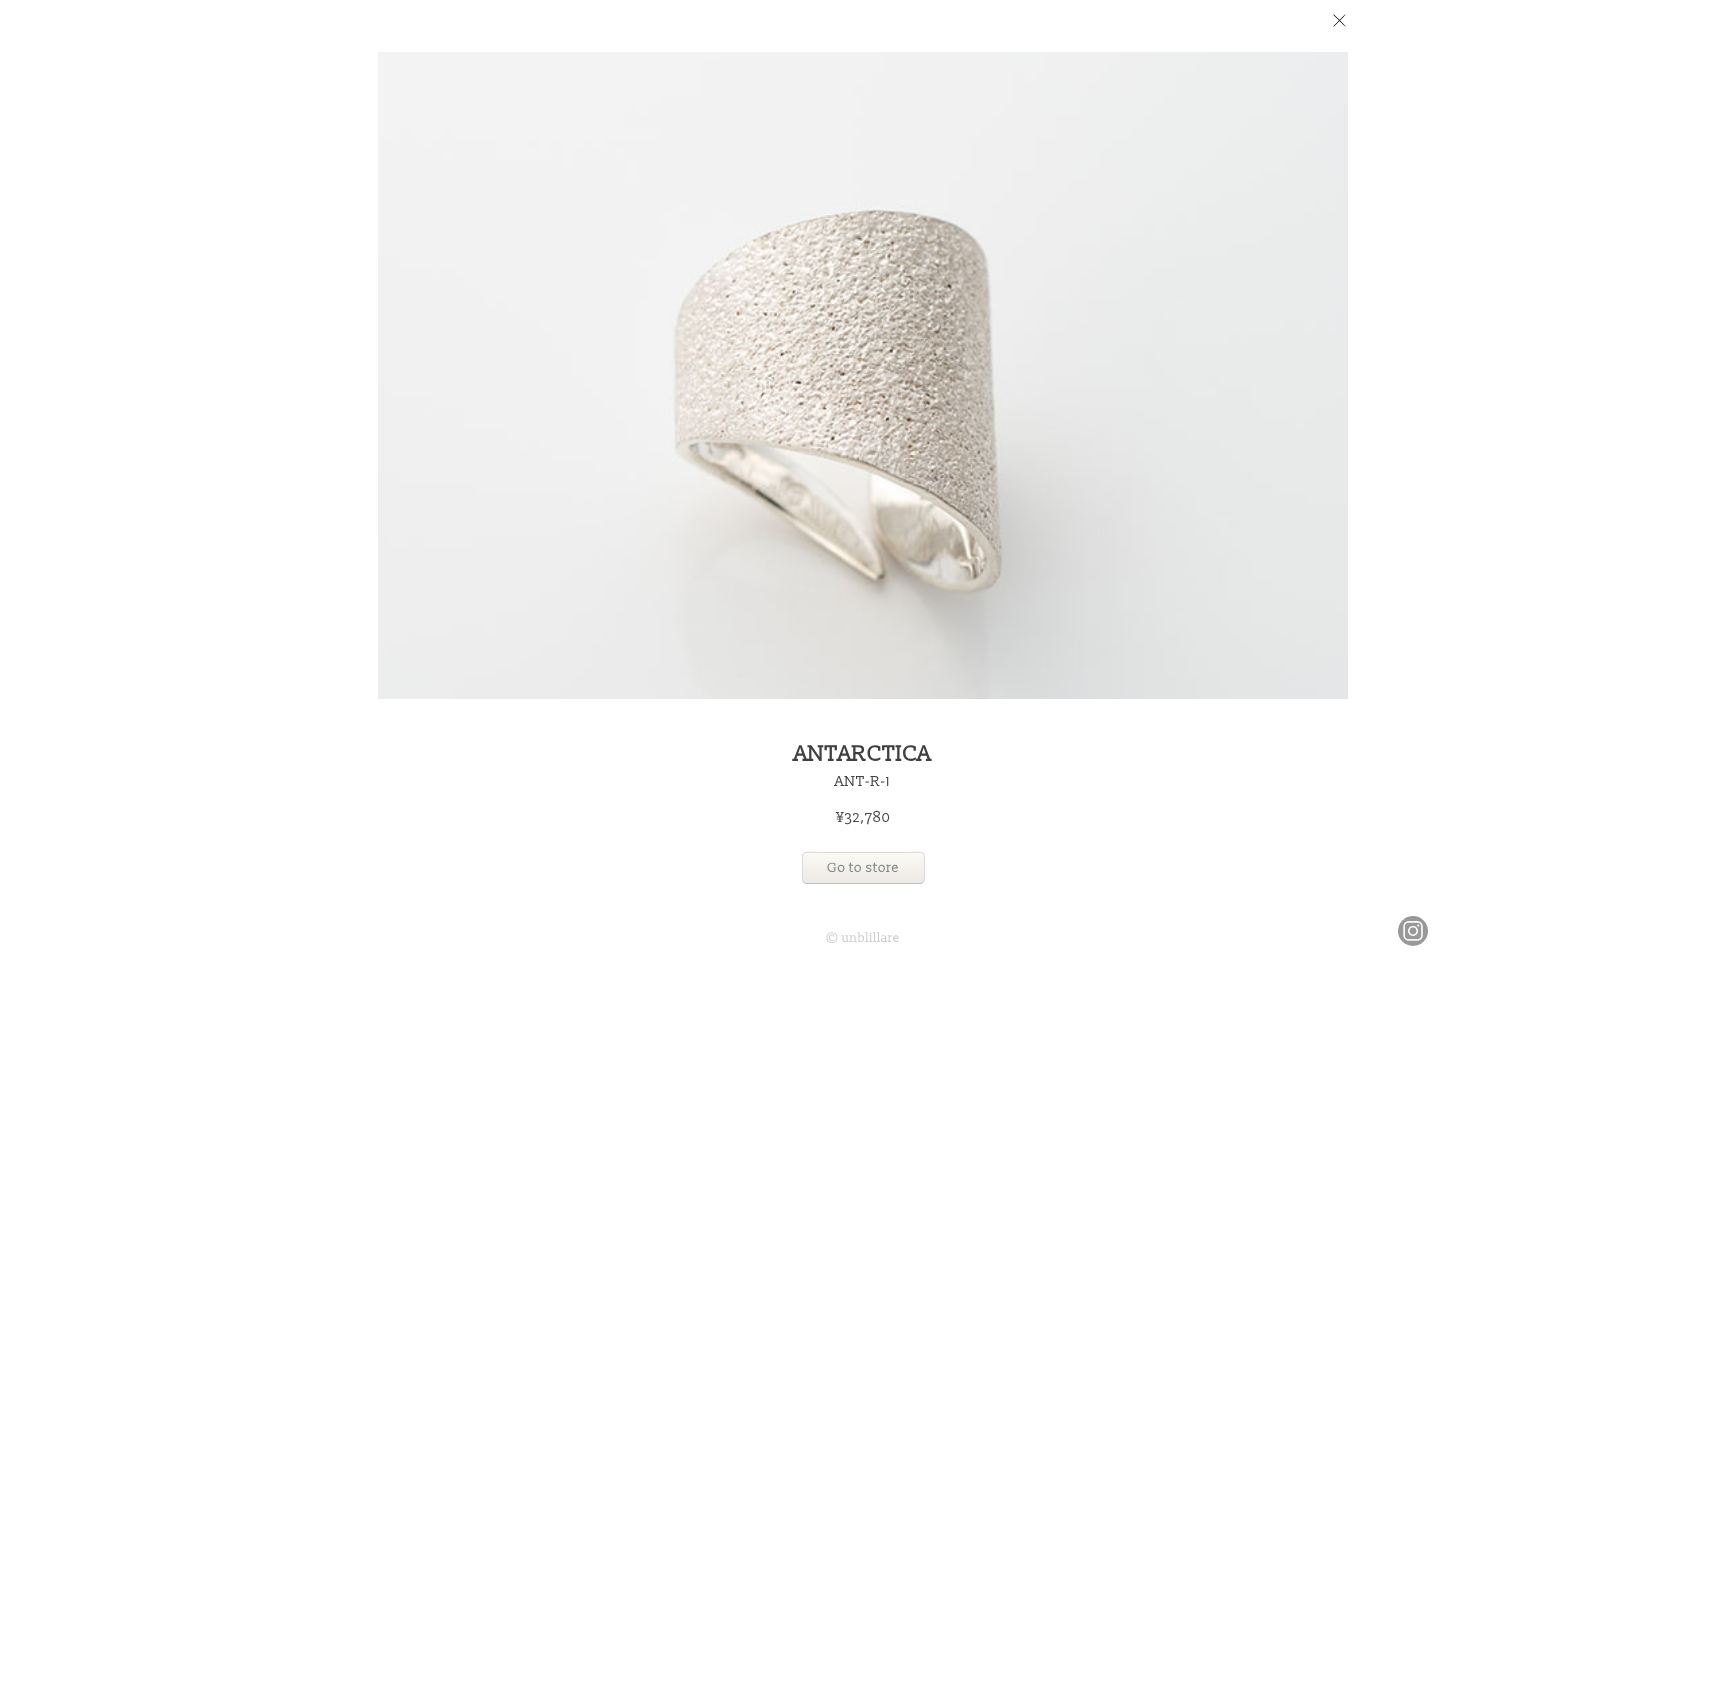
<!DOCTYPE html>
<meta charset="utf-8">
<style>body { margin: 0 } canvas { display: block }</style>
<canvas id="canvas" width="1726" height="1689"></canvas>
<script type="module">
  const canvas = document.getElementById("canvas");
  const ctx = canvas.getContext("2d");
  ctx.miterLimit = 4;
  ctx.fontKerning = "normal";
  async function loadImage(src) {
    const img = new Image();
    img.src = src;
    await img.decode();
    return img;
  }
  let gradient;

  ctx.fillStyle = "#ffffff";
  ctx.fillRect(0, 0, 1726, 1689);
  ctx.fillStyle = "#000000";
  ctx.beginPath();
  ctx.moveTo(1333.5, 26);
  ctx.lineTo(1345, 14.5);
  ctx.lineTo(1345.5, 14.5);
  ctx.lineTo(1343.5, 17);
  ctx.lineTo(1334, 26.5);
  ctx.bezierCurveTo(1333.5, 26.5, 1333, 26, 1333.5, 26);
  ctx.closePath();
  ctx.fill();
  ctx.beginPath();
  ctx.moveTo(1334, 14.5);
  ctx.lineTo(1345.5, 26);
  ctx.lineTo(1345.5, 26.5);
  ctx.lineTo(1343, 24.5);
  ctx.lineTo(1333.5, 15);
  ctx.bezierCurveTo(1333.5, 14.5, 1334, 14, 1334, 14.5);
  ctx.closePath();
  ctx.fill();
  ctx.drawImage(await loadImage("img1.png"), 378, 52, 970, 647);
  ctx.font = "bold 22px 'Slabo 13px'";
  ctx.fillStyle = "#404040";
  ctx.fillText("ANTARCTICA", 794, 761);
  ctx.letterSpacing = "0.5px";
  ctx.font = "14.5px 'Slabo 13px'";
  ctx.fillText("ANT-R-1", 835, 786);
  ctx.letterSpacing = "0px";
  ctx.fillStyle = "#4b4b4b";
  ctx.fillText("¥32,780", 836, 822);
  ctx.fillStyle = "#c7c5c1";
  ctx.filter = "blur(0.5px)";
  ctx.beginPath();
  ctx.roundRect(802, 852, 123, 32, 5);
  ctx.fill();
  ctx.filter = "none";
  ctx.save();
  ctx.beginPath();
  ctx.roundRect(802, 852, 123, 32, 5);
  ctx.clip();
  gradient = ctx.createLinearGradient(803, 823, 803, 853);
  gradient.addColorStop(0, "#fbfaf4");
  gradient.addColorStop(1, "#ece8e6");
  ctx.fillStyle = gradient;
  ctx.fillRect(802, 852, 123, 1);
  gradient = ctx.createLinearGradient(803, 853, 803, 883);
  gradient.addColorStop(0, "#fbfaf4");
  gradient.addColorStop(1, "#ece8e6");
  ctx.fillStyle = gradient;
  ctx.fillRect(802, 853, 123, 30);
  ctx.restore();
  ctx.beginPath();
  ctx.moveTo(923, 882);
  ctx.bezierCurveTo(922.5, 883, 921, 883.5, 920, 883.5);
  ctx.lineTo(807, 883.5);
  ctx.bezierCurveTo(806, 883.5, 804.5, 883, 804, 882);
  ctx.strokeStyle = "#c1c1bd";
  ctx.stroke();
  ctx.beginPath();
  ctx.moveTo(804, 882);
  ctx.bezierCurveTo(801.5, 879.5, 802.5, 874.5, 802.5, 871.5);
  ctx.bezierCurveTo(802.5, 848, 799.5, 852.5, 826, 852.5);
  ctx.lineTo(901, 852.5);
  ctx.bezierCurveTo(927.5, 852.5, 924.5, 848, 924.5, 871.5);
  ctx.bezierCurveTo(924.5, 874.5, 925.5, 879.5, 923, 882);
  ctx.strokeStyle = "#dcd9d8";
  ctx.stroke();
  ctx.font = "13.5px 'Slabo 13px'";
  ctx.fillStyle = "#7d8383";
  ctx.fillText("Go to store", 827, 872);
  ctx.font = "12.75px 'Slabo 13px'";
  ctx.fillStyle = "#cccccc";
  ctx.fillText("© unblillare", 826, 942);
  ctx.fillStyle = "#999999";
  ctx.beginPath();
  ctx.arc(1413, 931, 15, 0, Math.PI * 2);
  ctx.fill();
  ctx.drawImage(await loadImage("img2.png"), 1403, 921, 20, 20);
</script>
